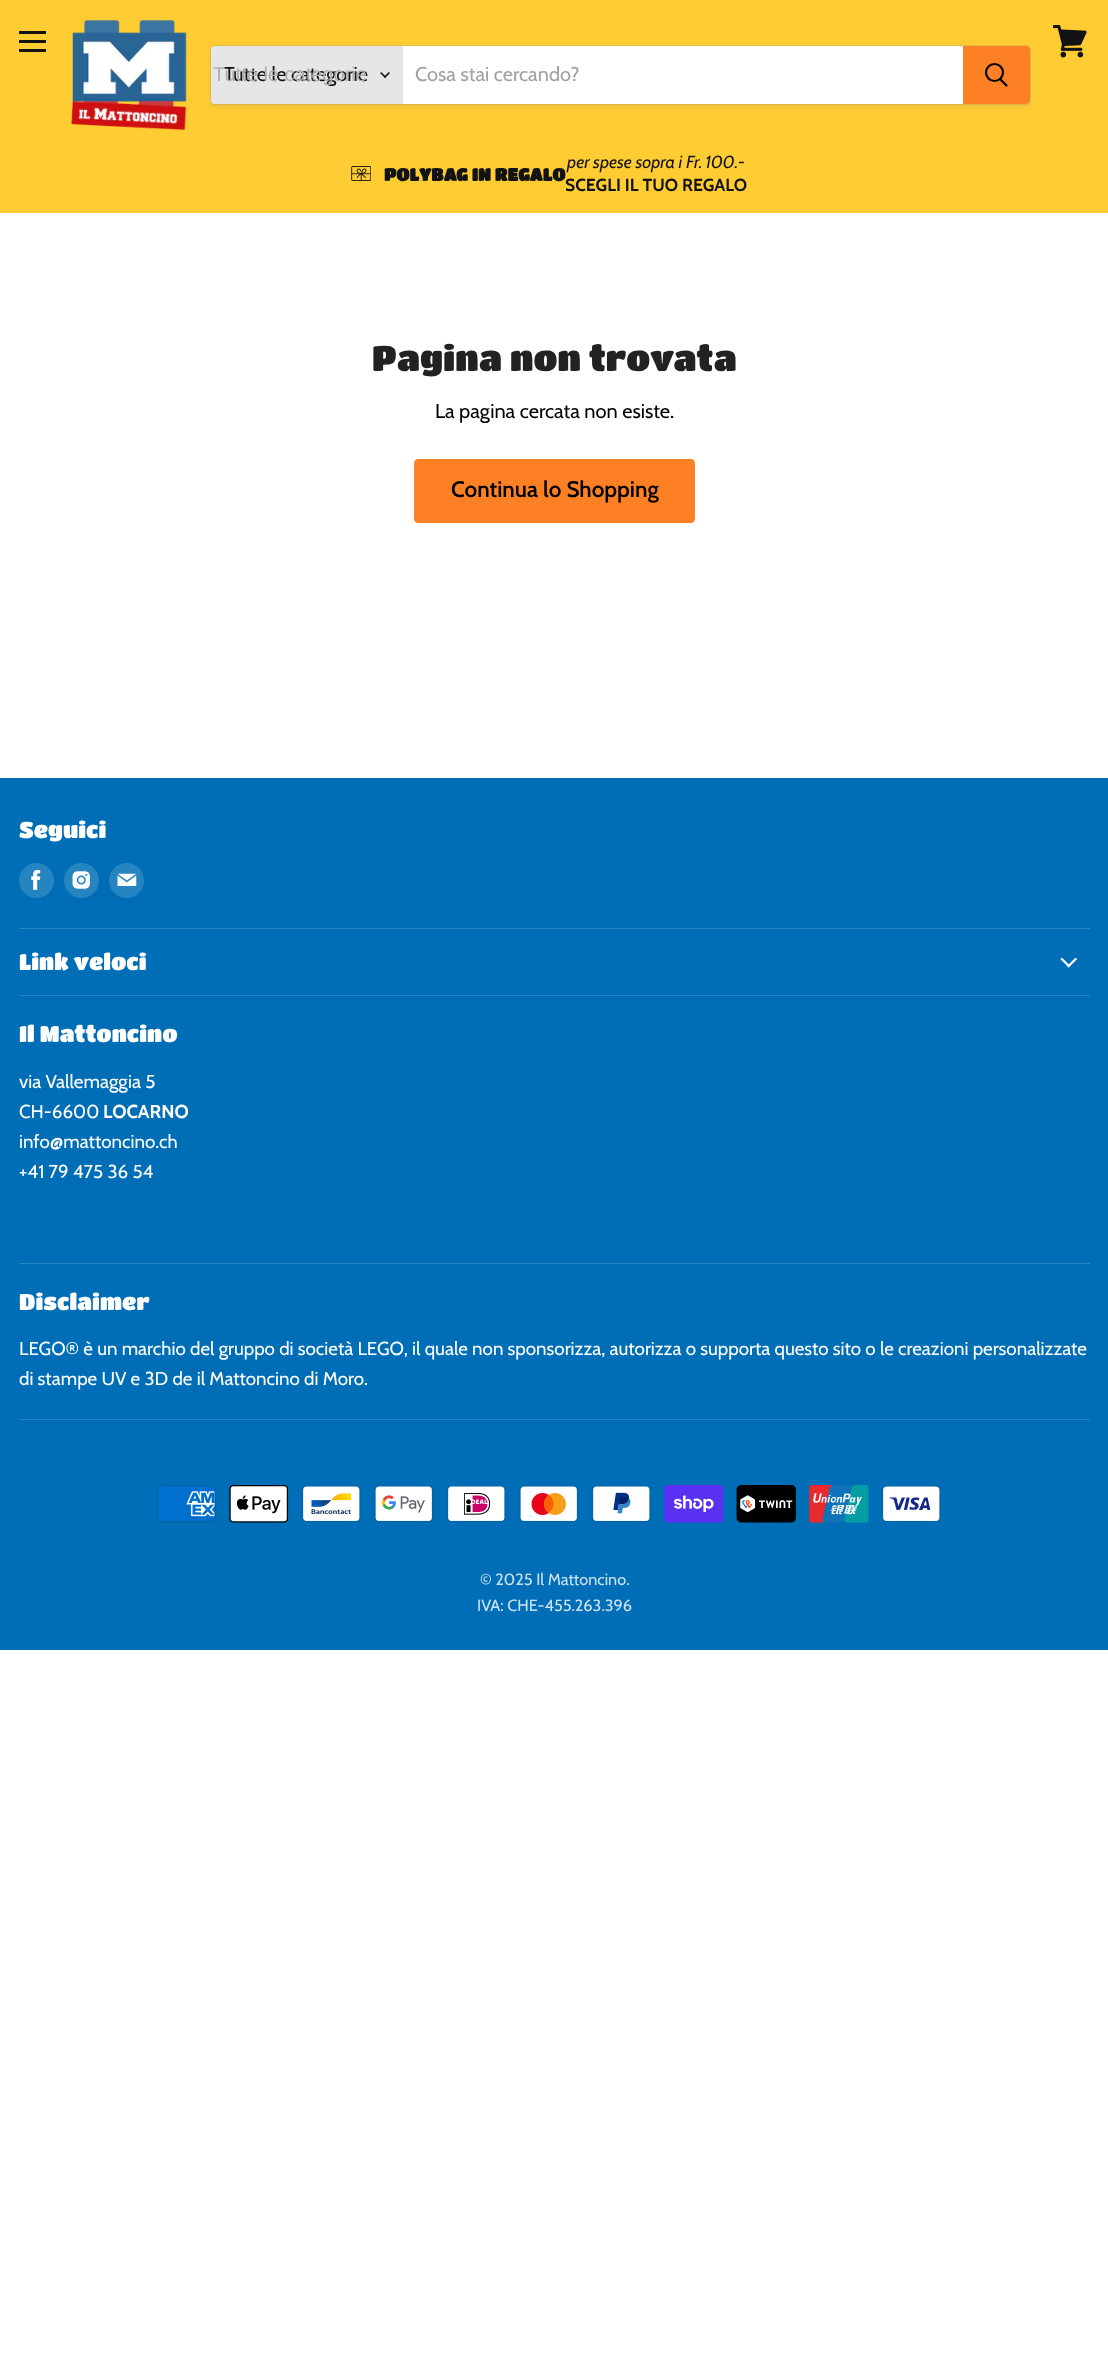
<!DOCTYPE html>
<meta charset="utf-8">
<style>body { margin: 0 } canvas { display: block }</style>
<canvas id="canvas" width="1108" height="2373"></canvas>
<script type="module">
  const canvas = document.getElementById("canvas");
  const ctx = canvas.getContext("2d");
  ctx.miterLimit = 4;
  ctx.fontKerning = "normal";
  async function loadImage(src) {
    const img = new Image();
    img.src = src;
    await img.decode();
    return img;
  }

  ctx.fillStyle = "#ffffff";
  ctx.fillRect(0, 0, 1108, 2373);
  ctx.fillStyle = "#ffcc33";
  ctx.fillRect(0, 0, 1108, 213);
  ctx.fillStyle = "#131313";
  ctx.fillRect(19, 31, 27, 3);
  ctx.fillRect(19, 40, 27, 3);
  ctx.fillRect(19, 49, 27, 3);
  ctx.drawImage(await loadImage("img1.png"), 1053, 25, 34, 33);
  ctx.drawImage(await loadImage("img2.png"), 71, 20, 116, 110);
  ctx.fillStyle = "rgba(128, 128, 128, 0.11)";
  ctx.filter = "blur(2px)";
  ctx.beginPath();
  ctx.roundRect(210, 48, 821, 60, 5);
  ctx.fill();
  ctx.filter = "none";
  ctx.beginPath();
  ctx.roundRect(210.5, 45.5, 820, 59, 4.5);
  ctx.strokeStyle = "rgba(128, 128, 128, 0.2)";
  ctx.stroke();
  ctx.fillStyle = "#e6e6e6";
  ctx.beginPath();
  ctx.roundRect(211, 46, 192, 58, [4, 0, 0, 4]);
  ctx.fill();
  ctx.font = "20px Cabin";
  ctx.fillStyle = "#131313";
  ctx.fillText("Tutte le categorie", 224, 81);
  ctx.font = "20px Liberation Sans";
  ctx.fillStyle = "#aeaeae";
  ctx.fillText("Tutte le categorie", 213, 81);
  ctx.drawImage(await loadImage("img3.png"), 380, 72, 10, 6);
  ctx.fillStyle = "#ffffff";
  ctx.fillRect(403, 46, 560, 58);
  ctx.font = "20px Cabin";
  ctx.fillStyle = "#a1a1a1";
  ctx.fillText("Cosa stai cercando?", 415, 81);
  ctx.fillStyle = "#fd8024";
  ctx.beginPath();
  ctx.roundRect(963.5, 46.5, 66, 57, [0, 3.5, 3.5, 0]);
  ctx.fill();
  ctx.strokeStyle = "#fd8024";
  ctx.stroke();
  ctx.beginPath();
  ctx.moveTo(1006.5, 85.5);
  ctx.lineTo(1000.5, 79.5);
  ctx.strokeStyle = "#000000";
  ctx.lineWidth = 2.2;
  ctx.lineCap = "round";
  ctx.stroke();
  ctx.beginPath();
  ctx.arc(994.5, 72.5, 8.5, 0, Math.PI * 2);
  ctx.stroke();
  ctx.drawImage(await loadImage("img4.png"), 351, 166, 20, 15);
  ctx.font = "bold 17.5px Titan One";
  ctx.fillStyle = "#131313";
  ctx.fillText("POLYBAG IN REGALO", 384, 181);
  ctx.font = "italic 17.5px Cabin";
  ctx.fillText("per spese sopra i Fr. 100.-", 567, 168);
  ctx.font = "bold 17.5px Cabin";
  ctx.fillText("SCEGLI IL TUO REGALO", 565, 191);
  ctx.font = "35px Titan One";
  ctx.fillStyle = "#222222";
  ctx.fillText("Pagina non trovata", 372, 371);
  ctx.font = "20px Cabin";
  ctx.fillStyle = "#000000";
  ctx.fillText("La pagina cercata non esiste.", 435, 418);
  ctx.fillStyle = "#fd8024";
  ctx.beginPath();
  ctx.roundRect(414.5, 459.5, 280, 63, 3.5);
  ctx.fill();
  ctx.strokeStyle = "#fd8024";
  ctx.lineWidth = 1;
  ctx.stroke();
  ctx.font = "600 22.5px Cabin";
  ctx.fillStyle = "#000000";
  ctx.fillText("Continua lo Shopping", 451, 497);
  ctx.fillStyle = "#006eb6";
  ctx.fillRect(0, 778, 1108, 872);
  ctx.fillStyle = "#2684c1";
  ctx.fillRect(19, 928, 1071, 1);
  ctx.font = "22.5px Titan One";
  ctx.fillStyle = "#ffffff";
  ctx.fillText("Seguici", 19, 838);
  ctx.fillStyle = "#2684c1";
  ctx.beginPath();
  ctx.arc(36.5, 880.5, 17.5, 0, Math.PI * 2);
  ctx.fill();
  ctx.drawImage(await loadImage("img5.png"), 31, 870, 10, 20);
  ctx.beginPath();
  ctx.arc(81.5, 880.5, 17.5, 0, Math.PI * 2);
  ctx.fill();
  ctx.drawImage(await loadImage("img6.png"), 72, 871, 18, 18);
  ctx.beginPath();
  ctx.arc(126.5, 880.5, 17.5, 0, Math.PI * 2);
  ctx.fill();
  ctx.drawImage(await loadImage("img7.png"), 117, 873, 20, 13);
  ctx.fillRect(19, 995, 1071, 1);
  ctx.fillStyle = "#ffffff";
  ctx.fillText("Link veloci", 19, 970);
  ctx.drawImage(await loadImage("img8.png"), 1060, 958, 18, 10);
  ctx.fillStyle = "#2684c1";
  ctx.fillRect(19, 1263, 1071, 1);
  ctx.fillStyle = "#ffffff";
  ctx.fillText("Il Mattoncino", 19, 1042);
  ctx.font = "18.75px Cabin";
  ctx.fillText("via Vallemaggia 5", 19, 1088);
  ctx.fillText("CH-6600", 19, 1118);
  ctx.font = "bold 18.75px Cabin";
  ctx.fillText("LOCARNO", 103, 1118);
  ctx.font = "18.75px Cabin";
  ctx.fillText("info@mattoncino.ch", 19, 1148);
  ctx.fillText("+41 79 475 36 54", 19, 1178);
  ctx.fillStyle = "#2684c1";
  ctx.fillRect(19, 1419, 1071, 1);
  ctx.font = "22.5px Titan One";
  ctx.fillStyle = "#ffffff";
  ctx.fillText("Disclaimer", 19, 1310);
  ctx.font = "18.75px Cabin";
  ctx.fillText("LEGO® è un marchio del gruppo di società LEGO, il quale non sponsorizza, autorizza o supporta questo sito o le creazioni personalizzate", 19, 1355);
  ctx.fillText("di stampe UV e 3D de il Mattoncino di Moro.", 19, 1385);
  ctx.drawImage(await loadImage("img9.png"), 156, 1485, 60, 38);
  ctx.drawImage(await loadImage("img10.png"), 229, 1485, 60, 38);
  ctx.drawImage(await loadImage("img11.png"), 301, 1485, 60, 38);
  ctx.drawImage(await loadImage("img12.png"), 374, 1485, 60, 38);
  ctx.drawImage(await loadImage("img13.png"), 447, 1485, 59, 38);
  ctx.drawImage(await loadImage("img14.png"), 519, 1485, 60, 38);
  ctx.drawImage(await loadImage("img15.png"), 591, 1485, 60, 38);
  ctx.drawImage(await loadImage("img16.png"), 664, 1485, 60, 38);
  ctx.drawImage(await loadImage("img17.png"), 736, 1485, 60, 38);
  ctx.drawImage(await loadImage("img18.png"), 809, 1485, 60, 38);
  ctx.drawImage(await loadImage("img19.png"), 881, 1485, 60, 38);
  ctx.font = "16.25px Cabin";
  ctx.fillStyle = "#cce2f0";
  ctx.fillText("© 2025 Il Mattoncino.", 480, 1585);
  ctx.fillText("IVA: CHE-455.263.396", 477, 1611);
</script>
